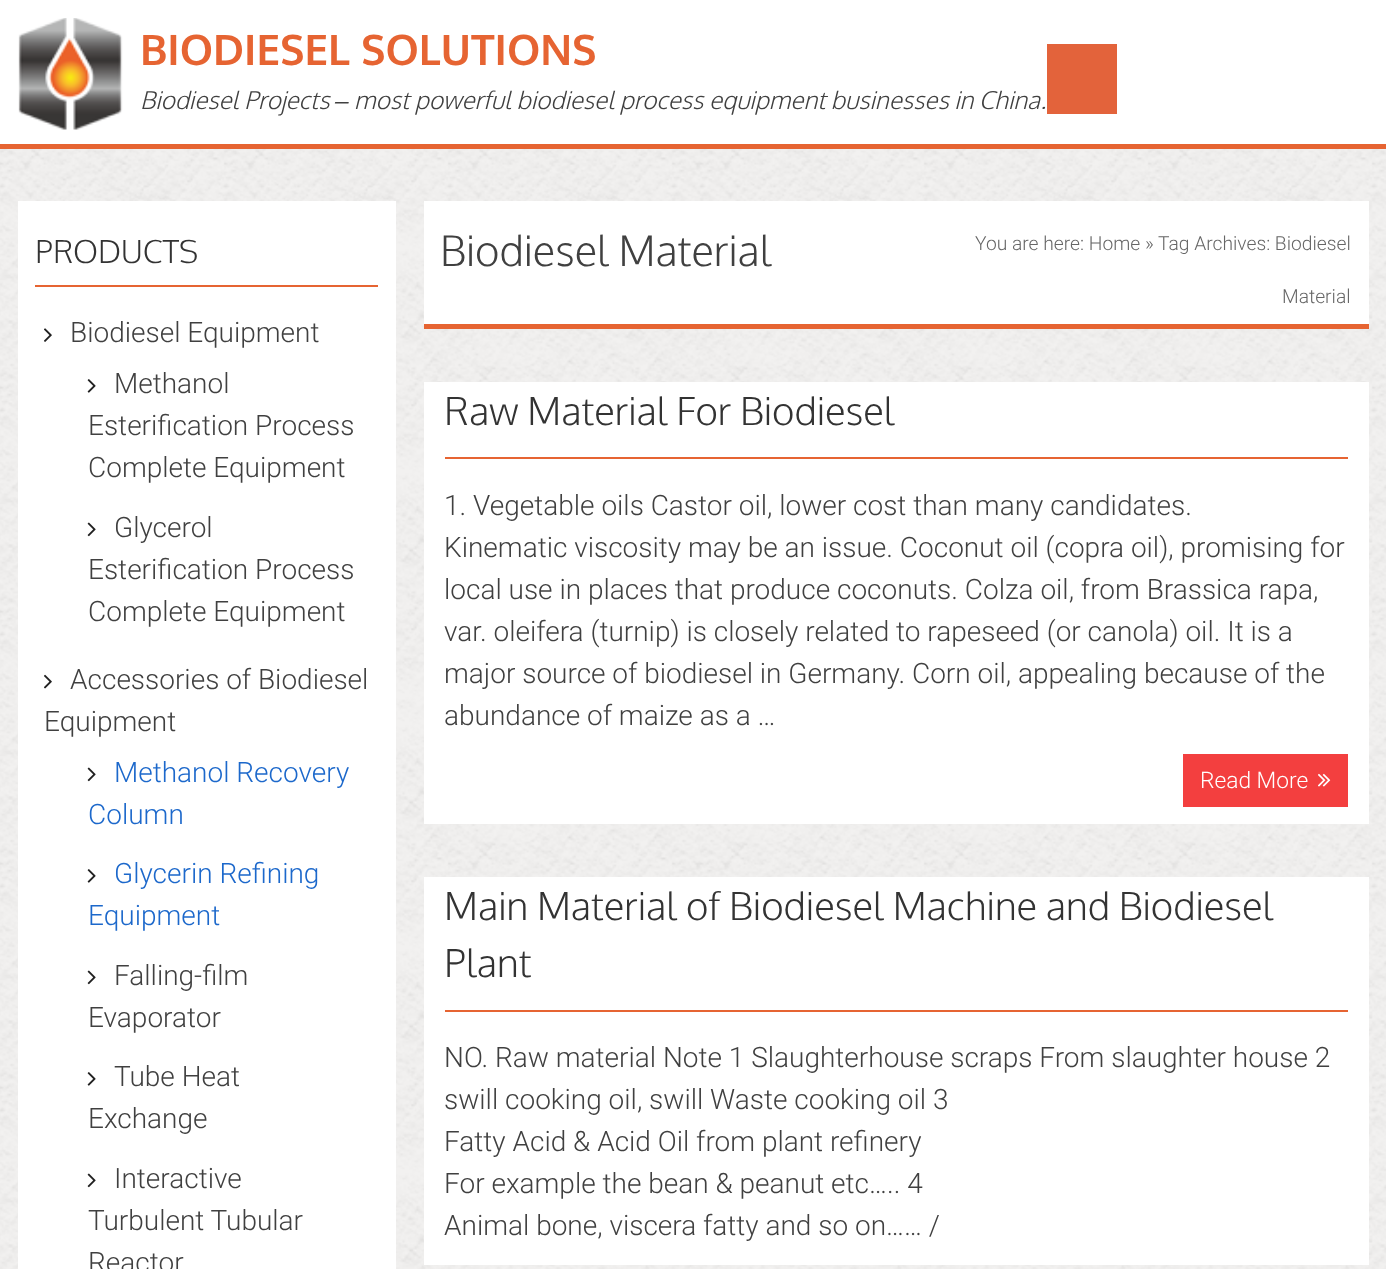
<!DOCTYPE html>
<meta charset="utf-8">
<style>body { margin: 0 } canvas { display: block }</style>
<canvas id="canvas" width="1386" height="1269"></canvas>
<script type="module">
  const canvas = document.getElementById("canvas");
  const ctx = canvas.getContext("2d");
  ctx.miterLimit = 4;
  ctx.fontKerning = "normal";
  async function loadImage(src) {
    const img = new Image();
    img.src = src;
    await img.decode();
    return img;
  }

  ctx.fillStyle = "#ffffff";
  ctx.fillRect(0, 0, 1386, 1269);
  ctx.drawImage(await loadImage("img1.png"), 0, 149, 1386, 1120);
  ctx.fillStyle = "#e66432";
  ctx.fillRect(0, 144, 1386, 5);
  ctx.drawImage(await loadImage("img2.png"), 18, 18, 105, 112);
  ctx.font = "bold 42px Oxygen";
  ctx.fillText("BIODIESEL SOLUTIONS", 140, 65);
  ctx.font = "italic 300 24.5px Oxygen";
  ctx.fillStyle = "#404040";
  ctx.fillText("Biodiesel Projects", 140, 109);
  ctx.font = "italic 24.5px Liberation Sans";
  ctx.fillText("–", 335, 109);
  ctx.font = "italic 300 24.5px Oxygen";
  ctx.fillText("most powerful biodiesel process equipment businesses in China.", 354, 109);
  ctx.fillStyle = "#e3633b";
  ctx.fillRect(1047, 44, 70, 70);
  ctx.fillStyle = "#ffffff";
  ctx.fillRect(18, 201, 378, 1068);
  ctx.fillStyle = "#e66432";
  ctx.fillRect(35, 285, 343, 2);
  ctx.font = "300 31.5px Oxygen";
  ctx.fillStyle = "#333333";
  ctx.fillText("PRODUCTS", 35, 263);
  ctx.drawImage(await loadImage("img3.png"), 44, 328, 8, 14);
  ctx.font = "300 28px Roboto";
  ctx.fillStyle = "#404040";
  ctx.fillText("Biodiesel Equipment", 70, 342);
  ctx.drawImage(await loadImage("img4.png"), 87, 379, 9, 14);
  ctx.fillText("Methanol", 114, 393);
  ctx.fillText("Esterification Process", 88, 435);
  ctx.fillText("Complete Equipment", 88, 477);
  ctx.drawImage(await loadImage("img5.png"), 87, 522, 9, 15);
  ctx.fillText("Glycerol", 114, 537);
  ctx.fillText("Esterification Process", 88, 579);
  ctx.fillText("Complete Equipment", 88, 621);
  ctx.drawImage(await loadImage("img6.png"), 44, 674, 8, 15);
  ctx.fillText("Accessories of Biodiesel", 70, 689);
  ctx.fillText("Equipment", 44, 731);
  ctx.drawImage(await loadImage("img5.png"), 87, 767, 9, 15);
  ctx.fillStyle = "#1c68cb";
  ctx.fillText("Methanol Recovery", 114, 782);
  ctx.fillText("Column", 88, 824);
  ctx.drawImage(await loadImage("img4.png"), 87, 869, 9, 14);
  ctx.fillText("Glycerin Refining", 114, 883);
  ctx.fillText("Equipment", 88, 925);
  ctx.drawImage(await loadImage("img5.png"), 87, 970, 9, 15);
  ctx.fillStyle = "#404040";
  ctx.fillText("Falling-film", 114, 985);
  ctx.fillText("Evaporator", 88, 1027);
  ctx.drawImage(await loadImage("img4.png"), 87, 1072, 9, 14);
  ctx.fillText("Tube Heat", 114, 1086);
  ctx.fillText("Exchange", 88, 1128);
  ctx.drawImage(await loadImage("img5.png"), 87, 1173, 9, 15);
  ctx.fillText("Interactive", 114, 1188);
  ctx.fillText("Turbulent Tubular", 88, 1230);
  ctx.fillText("Reactor", 88, 1272);
  ctx.fillStyle = "#ffffff";
  ctx.fillRect(424, 201, 945, 123);
  ctx.fillStyle = "#e66432";
  ctx.fillRect(424, 324, 945, 5);
  ctx.font = "300 42px Oxygen";
  ctx.fillStyle = "#404040";
  ctx.fillText("Biodiesel Material", 440, 266);
  ctx.font = "300 19.25px Roboto";
  ctx.fillStyle = "#666666";
  ctx.fillText("You are here: Home »", 975, 250);
  ctx.fillText("Tag Archives: Biodiesel", 1158, 250);
  ctx.fillText("Material", 1282, 303);
  ctx.fillStyle = "#ffffff";
  ctx.fillRect(424, 382, 945, 442);
  ctx.fillStyle = "#e66432";
  ctx.fillRect(445, 457, 903, 2);
  ctx.font = "300 38.5px Oxygen";
  ctx.fillStyle = "#333333";
  ctx.fillText("Raw Material For Biodiesel", 444, 425);
  ctx.font = "300 28px Roboto";
  ctx.fillStyle = "#404040";
  ctx.fillText("1. Vegetable oils Castor oil, lower cost than many candidates.", 444, 515);
  ctx.fillText("Kinematic viscosity may be an issue. Coconut oil (copra oil), promising for", 444, 557);
  ctx.fillText("local use in places that produce coconuts. Colza oil, from Brassica rapa,", 444, 599);
  ctx.fillText("var. oleifera (turnip) is closely related to rapeseed (or canola) oil. It is a", 444, 641);
  ctx.fillText("major source of biodiesel in Germany. Corn oil, appealing because of the", 444, 683);
  ctx.fillText("abundance of maize as a …", 444, 725);
  ctx.fillStyle = "#f33f3f";
  ctx.fillRect(1183, 754, 165, 53);
  ctx.font = "300 22.75px Roboto";
  ctx.fillStyle = "#ffffff";
  ctx.fillText("Read More", 1200, 788);
  ctx.drawImage(await loadImage("img7.png"), 1318, 773, 13, 14);
  ctx.fillRect(424, 877, 945, 388);
  ctx.fillStyle = "#e66432";
  ctx.fillRect(445, 1010, 903, 2);
  ctx.font = "300 38.5px Oxygen";
  ctx.fillStyle = "#333333";
  ctx.fillText("Main Material of Biodiesel Machine and Biodiesel", 444, 920);
  ctx.fillText("Plant", 444, 977);
  ctx.font = "300 28px Roboto";
  ctx.fillStyle = "#404040";
  ctx.fillText("NO. Raw material Note 1 Slaughterhouse scraps From slaughter house 2", 444, 1067);
  ctx.fillText("swill cooking oil, swill Waste cooking oil 3", 444, 1109);
  ctx.fillText("Fatty Acid & Acid Oil from plant refinery", 444, 1151);
  ctx.fillText("For example the bean & peanut etc….. 4", 444, 1193);
  ctx.fillText("Animal bone, viscera fatty and so on…… /", 444, 1235);
</script>
